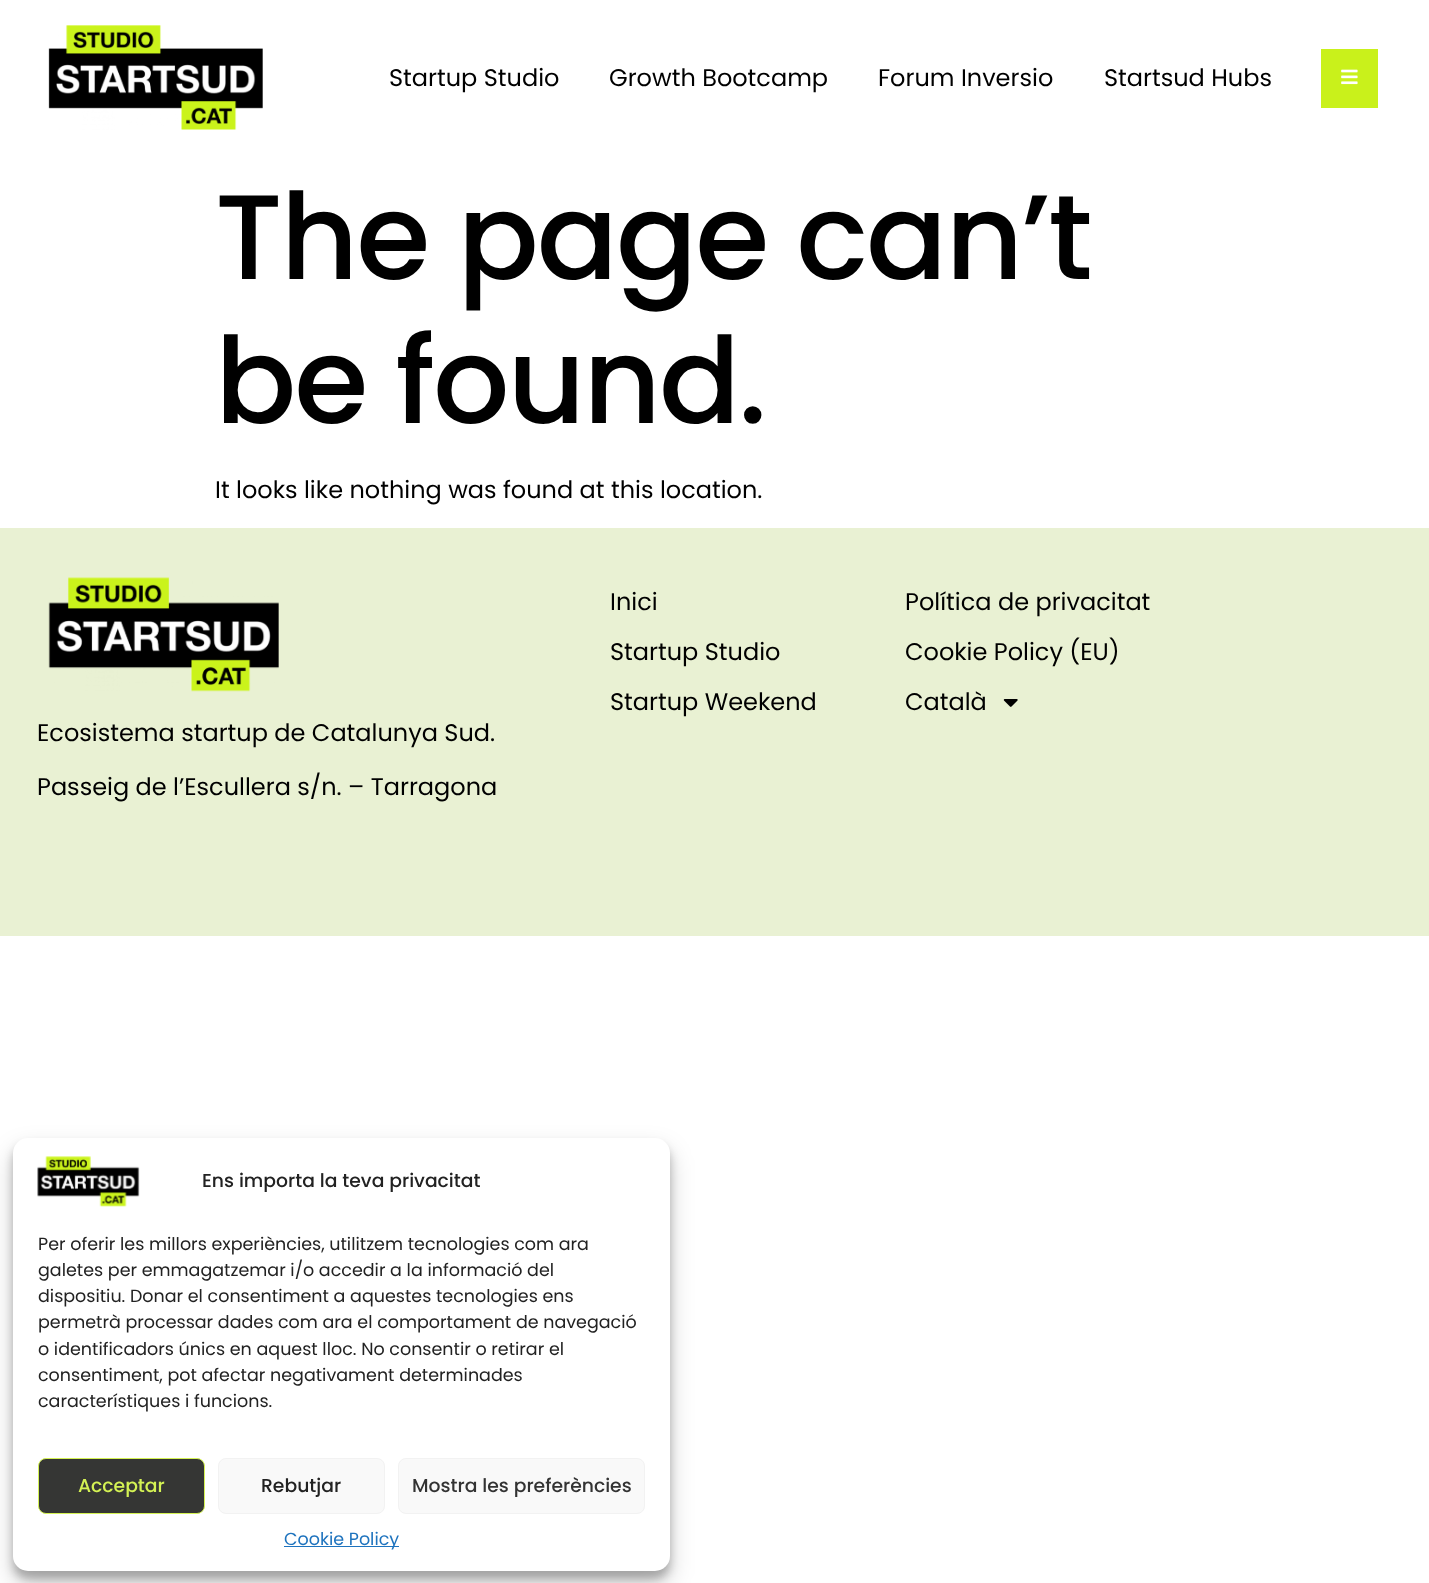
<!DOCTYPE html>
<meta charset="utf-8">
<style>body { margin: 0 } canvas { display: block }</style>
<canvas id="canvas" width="1429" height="1583"></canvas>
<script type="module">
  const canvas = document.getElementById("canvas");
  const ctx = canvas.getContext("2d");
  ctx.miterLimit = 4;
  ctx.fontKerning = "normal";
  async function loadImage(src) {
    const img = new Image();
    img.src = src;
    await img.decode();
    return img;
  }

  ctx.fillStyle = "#ffffff";
  ctx.fillRect(0, 0, 1429, 1583);
  ctx.drawImage(await loadImage("img1.png"), 48, 25, 215, 105);
  ctx.font = "24px Poppins";
  ctx.fillStyle = "#000000";
  ctx.fillText("Startup Studio", 389, 86);
  ctx.fillText("Growth Bootcamp", 609, 86);
  ctx.fillText("Forum Inversio", 878, 86);
  ctx.fillText("Startsud Hubs", 1104, 86);
  ctx.fillStyle = "#c9f11b";
  ctx.fillRect(1321, 49, 57, 59);
  ctx.drawImage(await loadImage("img2.png"), 1341, 69, 17, 16);
  ctx.letterSpacing = "-2.1px";
  ctx.font = "500 120px Poppins";
  ctx.fillStyle = "#000000";
  ctx.fillText("The page can’t", 215, 279);
  ctx.fillText("be found.", 215, 423);
  ctx.letterSpacing = "0px";
  ctx.font = "24px Poppins";
  ctx.fillText("It looks like nothing was found at this location.", 215, 498);
  ctx.fillStyle = "#e9f1d3";
  ctx.fillRect(0, 528, 1429, 408);
  ctx.fillStyle = "#000000";
  ctx.fillText("Inici", 610, 610);
  ctx.fillText("Startup Studio", 610, 660);
  ctx.fillText("Startup Weekend", 610, 710);
  ctx.fillText("Política de privacitat", 905, 610);
  ctx.fillText("Cookie Policy (EU)", 905, 660);
  ctx.fillText("Català", 905, 710);
  ctx.drawImage(await loadImage("img3.png"), 1003, 699, 15, 8);
  ctx.drawImage(await loadImage("img4.png"), 48, 577, 231, 115);
  ctx.fillText("Ecosistema startup de Catalunya Sud.", 37, 741);
  ctx.fillText("Passeig de l’Escullera s/n. – Tarragona", 37, 795);
  ctx.fillStyle = "rgba(0, 0, 0, 0.23)";
  ctx.filter = "blur(4px)";
  ctx.beginPath();
  ctx.roundRect(13, 1145, 657, 434, 15);
  ctx.fill();
  ctx.filter = "none";
  ctx.fillStyle = "rgba(0, 0, 0, 0.19)";
  ctx.filter = "blur(12.5px)";
  ctx.beginPath();
  ctx.roundRect(13, 1150, 657, 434, 15);
  ctx.fill();
  ctx.filter = "none";
  ctx.fillStyle = "#ffffff";
  ctx.beginPath();
  ctx.roundRect(13, 1138, 657, 433, 15);
  ctx.fill();
  ctx.drawImage(await loadImage("img5.png"), 37, 1156, 103, 51);
  ctx.font = "500 18.75px Poppins";
  ctx.fillStyle = "#222222";
  ctx.fillText("Ens importa la teva privacitat", 202, 1187);
  ctx.font = "17.5px Poppins";
  ctx.fillText("Per oferir les millors experiències, utilitzem tecnologies com ara", 38, 1250);
  ctx.fillText("galetes per emmagatzemar i/o accedir a la informació del", 38, 1276);
  ctx.fillText("dispositiu. Donar el consentiment a aquestes tecnologies ens", 38, 1302);
  ctx.fillText("permetrà processar dades com ara el comportament de navegació", 38, 1328);
  ctx.fillText("o identificadors únics en aquest lloc. No consentir o retirar el", 38, 1355);
  ctx.fillText("consentiment, pot afectar negativament determinades", 38, 1381);
  ctx.fillText("característiques i funcions.", 38, 1407);
  ctx.fillStyle = "#353634";
  ctx.beginPath();
  ctx.roundRect(38.5, 1458.5, 166, 55, 7.5);
  ctx.fill();
  ctx.strokeStyle = "#d4f254";
  ctx.stroke();
  ctx.font = "500 18.75px Poppins";
  ctx.fillStyle = "#d4f254";
  ctx.fillText("Acceptar", 78, 1492);
  ctx.fillStyle = "#f9f9f9";
  ctx.beginPath();
  ctx.roundRect(218.5, 1458.5, 166, 55, 7.5);
  ctx.fill();
  ctx.strokeStyle = "#f2f2f2";
  ctx.stroke();
  ctx.fillStyle = "#222222";
  ctx.fillText("Rebutjar", 261, 1492);
  ctx.fillStyle = "#f9f9f9";
  ctx.beginPath();
  ctx.roundRect(398.5, 1458.5, 246, 55, 7.5);
  ctx.fill();
  ctx.stroke();
  ctx.fillStyle = "#333333";
  ctx.fillText("Mostra les preferències", 412, 1492);
  ctx.fillStyle = "#1e73be";
  ctx.fillRect(284, 1546, 115, 1);
  ctx.font = "17.5px Poppins";
  ctx.fillText("Cookie Policy", 284, 1545);
</script>
